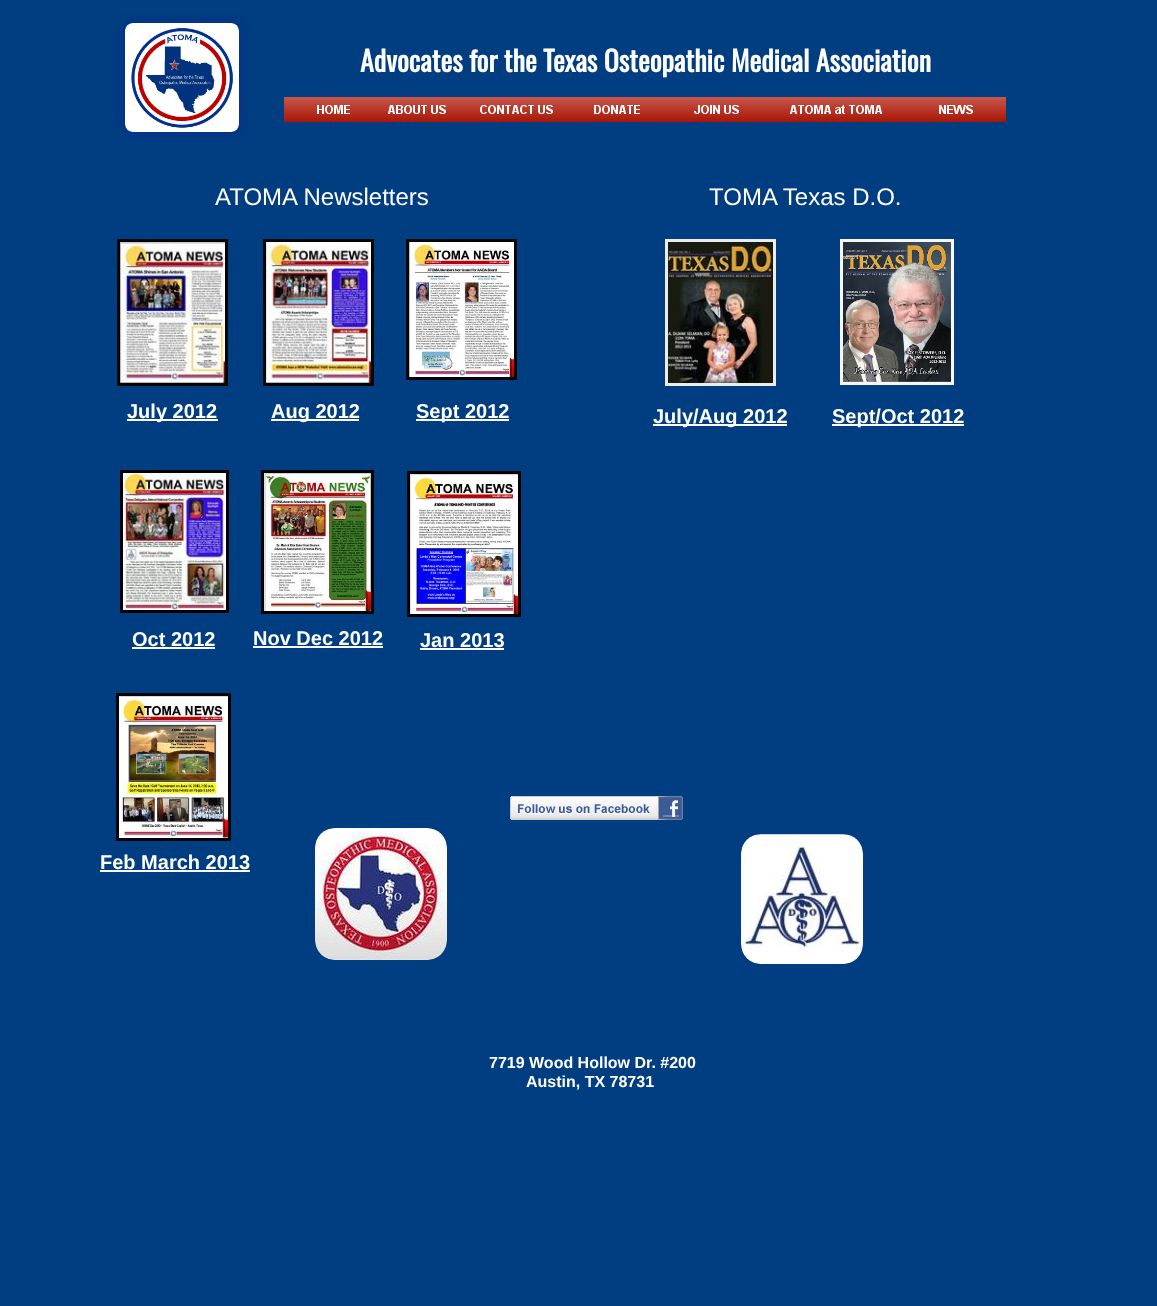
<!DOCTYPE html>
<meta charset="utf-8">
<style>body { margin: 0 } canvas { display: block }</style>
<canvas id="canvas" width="1157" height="1306"></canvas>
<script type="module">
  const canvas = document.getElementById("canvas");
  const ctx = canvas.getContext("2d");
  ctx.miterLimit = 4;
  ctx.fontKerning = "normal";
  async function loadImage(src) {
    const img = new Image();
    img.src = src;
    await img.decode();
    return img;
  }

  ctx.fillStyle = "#003d81";
  ctx.fillRect(0, 0, 1157, 1306);
  ctx.fillStyle = "#0d278f";
  ctx.filter = "blur(5px)";
  ctx.beginPath();
  ctx.roundRect(125, 23, 114, 109, 8);
  ctx.fill();
  ctx.filter = "none";
  ctx.drawImage(await loadImage("img1.png"), 125, 23, 114, 109);
  ctx.font = "bold 28px Oswald";
  ctx.fillStyle = "#ffffff";
  ctx.fillText("Advocates for the Texas Osteopathic Medical Association", 360, 72);
  ctx.drawImage(await loadImage("img2.png"), 284, 97, 100, 25);
  ctx.drawImage(await loadImage("img3.png"), 384, 97, 83, 25);
  ctx.drawImage(await loadImage("img4.png"), 467, 97, 100, 25);
  ctx.drawImage(await loadImage("img5.png"), 567, 97, 100, 25);
  ctx.drawImage(await loadImage("img6.png"), 667, 97, 100, 25);
  ctx.drawImage(await loadImage("img7.png"), 767, 97, 139, 25);
  ctx.drawImage(await loadImage("img8.png"), 906, 97, 100, 25);
  ctx.font = "24px Liberation Sans";
  ctx.fillText("ATOMA Newsletters", 215, 205);
  ctx.fillText("TOMA Texas D.O.", 709, 205);
  ctx.strokeStyle = "#020405";
  ctx.lineWidth = 3;
  ctx.strokeRect(118.5, 240.5, 108, 144);
  ctx.drawImage(await loadImage("img9.png"), 120, 242, 105, 141);
  ctx.strokeRect(264.5, 240.5, 108, 144);
  ctx.drawImage(await loadImage("img10.png"), 266, 242, 105, 141);
  ctx.strokeRect(407.5, 240.5, 108, 138);
  ctx.drawImage(await loadImage("img11.png"), 409, 242, 105, 135);
  ctx.strokeStyle = "#ececec";
  ctx.strokeRect(666.5, 240.5, 108, 144);
  ctx.drawImage(await loadImage("img12.png"), 668, 242, 105, 141);
  ctx.strokeStyle = "#f7f7f7";
  ctx.strokeRect(841.5, 240.5, 111, 143);
  ctx.drawImage(await loadImage("img13.png"), 843, 242, 108, 140);
  ctx.fillRect(127, 419, 91, 2);
  ctx.font = "bold 20px Liberation Sans";
  ctx.fillText("July 2012", 127, 418);
  ctx.fillRect(271, 419, 88, 2);
  ctx.fillText("Aug 2012", 271, 418);
  ctx.fillRect(416, 419, 93, 2);
  ctx.fillText("Sept 2012", 416, 418);
  ctx.fillRect(653, 424, 134, 2);
  ctx.fillText("July/Aug 2012", 653, 423);
  ctx.fillRect(832, 424, 132, 2);
  ctx.fillText("Sept/Oct 2012", 832, 423);
  ctx.strokeStyle = "#000000";
  ctx.strokeRect(121.5, 471.5, 106, 140);
  ctx.drawImage(await loadImage("img14.png"), 123, 473, 103, 137);
  ctx.strokeStyle = "#010203";
  ctx.strokeRect(262.5, 471.5, 110, 141);
  ctx.drawImage(await loadImage("img15.png"), 264, 473, 107, 138);
  ctx.strokeStyle = "#000000";
  ctx.strokeRect(408.5, 472.5, 111, 143);
  ctx.drawImage(await loadImage("img16.png"), 410, 474, 108, 140);
  ctx.fillText("Oct 2012", 132, 646);
  ctx.fillRect(132, 647, 83, 2);
  ctx.fillText("Nov Dec 2012", 253, 645);
  ctx.fillRect(253, 646, 130, 2);
  ctx.fillText("Jan 2013", 420, 647);
  ctx.fillRect(420, 648, 84, 2);
  ctx.strokeStyle = "#030508";
  ctx.strokeRect(117.5, 694.5, 112, 145);
  ctx.drawImage(await loadImage("img17.png"), 119, 696, 109, 142);
  ctx.drawImage(await loadImage("img18.png"), 510, 796, 173, 24);
  ctx.fillText("Feb March 2013", 100, 869);
  ctx.fillRect(100, 870, 150, 2);
  ctx.drawImage(await loadImage("img19.png"), 315, 828, 132, 132);
  ctx.drawImage(await loadImage("img20.png"), 741, 834, 122, 130);
  ctx.font = "bold 16px Liberation Sans";
  ctx.fillText("7719 Wood Hollow Dr. #200", 489, 1068);
  ctx.fillText("Austin, TX 78731", 526, 1087);
</script>
